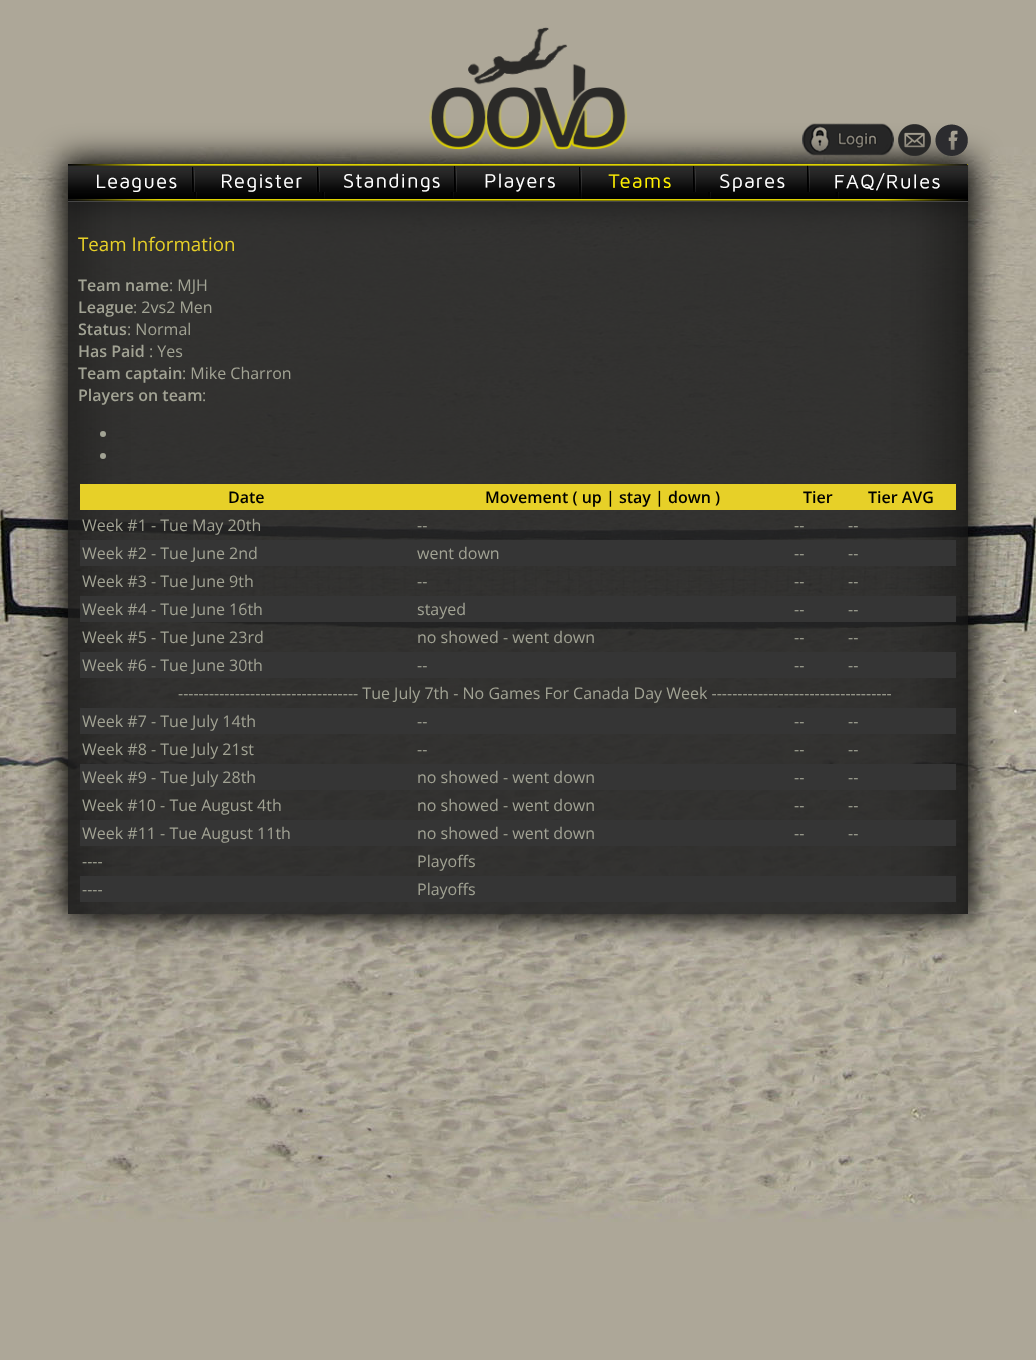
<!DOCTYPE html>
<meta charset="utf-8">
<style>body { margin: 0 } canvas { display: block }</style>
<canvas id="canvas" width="1036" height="1360"></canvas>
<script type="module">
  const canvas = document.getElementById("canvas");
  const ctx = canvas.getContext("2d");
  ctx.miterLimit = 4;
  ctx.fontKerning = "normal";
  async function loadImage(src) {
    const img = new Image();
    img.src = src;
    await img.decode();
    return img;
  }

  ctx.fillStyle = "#ada798";
  ctx.fillRect(0, 0, 1036, 1360);
  ctx.drawImage(await loadImage("img1.png"), 0, 147, 1036, 1075);
  ctx.fillStyle = "#000000";
  ctx.filter = "blur(15px)";
  ctx.beginPath();
  ctx.rect(63, 159, 910, 47);
  ctx.fill();
  ctx.filter = "none";
  ctx.save();
  ctx.beginPath();
  ctx.moveTo(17, 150);
  ctx.lineTo(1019, 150);
  ctx.lineTo(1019, 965);
  ctx.lineTo(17, 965);
  ctx.closePath();
  ctx.moveTo(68, 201);
  ctx.lineTo(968, 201);
  ctx.lineTo(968, 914);
  ctx.lineTo(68, 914);
  ctx.closePath();
  ctx.clip("evenodd");
  ctx.filter = "blur(15px)";
  ctx.beginPath();
  ctx.rect(63, 196, 910, 723);
  ctx.fill();
  ctx.filter = "none";
  ctx.restore();
  ctx.drawImage(await loadImage("img2.png"), 802, 123, 92, 33);
  ctx.drawImage(await loadImage("img3.png"), 898, 124, 33, 32);
  ctx.drawImage(await loadImage("img4.png"), 935, 124, 33, 32);
  ctx.drawImage(await loadImage("img5.png"), 429, 27, 198, 123);
  ctx.drawImage(await loadImage("img6.png"), 68, 164, 123, 37);
  ctx.drawImage(await loadImage("img7.png"), 191, 164, 125, 37);
  ctx.drawImage(await loadImage("img8.png"), 316, 164, 137, 37);
  ctx.drawImage(await loadImage("img9.png"), 453, 164, 125, 37);
  ctx.drawImage(await loadImage("img10.png"), 578, 164, 114, 37);
  ctx.drawImage(await loadImage("img11.png"), 692, 164, 117, 37);
  ctx.drawImage(await loadImage("img12.png"), 809, 164, 159, 37);
  ctx.drawImage(await loadImage("img13.png"), 68, 202, 900, 712);
  ctx.fillStyle = "#464646";
  ctx.fillRect(68, 201, 900, 1);
  ctx.font = "18.75px Open Sans";
  ctx.fillStyle = "#e7d028";
  ctx.fillText("Team Information", 78, 251);
  ctx.font = "600 16px Open Sans";
  ctx.fillStyle = "#a2a394";
  ctx.fillText("Team name", 78, 291);
  ctx.font = "16px Open Sans";
  ctx.fillText(": MJH", 169, 291);
  ctx.font = "600 16px Open Sans";
  ctx.fillText("League", 78, 313);
  ctx.font = "16px Open Sans";
  ctx.fillText(": 2vs2 Men", 133, 313);
  ctx.font = "600 16px Open Sans";
  ctx.fillText("Status", 78, 335);
  ctx.font = "16px Open Sans";
  ctx.fillText(": Normal", 127, 335);
  ctx.font = "600 16px Open Sans";
  ctx.fillText("Has Paid", 78, 357);
  ctx.font = "16px Open Sans";
  ctx.fillText(": Yes", 149, 357);
  ctx.font = "600 16px Open Sans";
  ctx.fillText("Team captain", 78, 379);
  ctx.font = "16px Open Sans";
  ctx.fillText(": Mike Charron", 182, 379);
  ctx.font = "600 16px Open Sans";
  ctx.fillText("Players on team", 78, 401);
  ctx.font = "16px Open Sans";
  ctx.fillText(":", 202, 401);
  ctx.beginPath();
  ctx.arc(103, 434, 3, 0, Math.PI * 2);
  ctx.fill();
  ctx.beginPath();
  ctx.arc(103, 456, 3, 0, Math.PI * 2);
  ctx.fill();
  ctx.fillStyle = "#e7d028";
  ctx.fillRect(80, 484, 876, 26);
  ctx.font = "600 16px Open Sans";
  ctx.fillStyle = "#000000";
  ctx.fillText("Date", 228, 503);
  ctx.fillText("Movement ( up | stay | down )", 485, 503);
  ctx.fillText("Tier", 803, 503);
  ctx.fillText("Tier AVG", 868, 503);
  ctx.font = "16px Open Sans";
  ctx.fillStyle = "#a2a394";
  ctx.fillText("Week #1 - Tue May 20th", 82, 531);
  ctx.fillText("--", 417, 531);
  ctx.fillText("--", 794, 531);
  ctx.fillText("--", 848, 531);
  ctx.fillStyle = "#353535";
  ctx.fillRect(80, 540, 876, 26);
  ctx.fillStyle = "#a2a394";
  ctx.fillText("Week #2 - Tue June 2nd", 82, 559);
  ctx.fillText("went down", 417, 559);
  ctx.fillText("--", 794, 559);
  ctx.fillText("--", 848, 559);
  ctx.fillText("Week #3 - Tue June 9th", 82, 587);
  ctx.fillText("--", 417, 587);
  ctx.fillText("--", 794, 587);
  ctx.fillText("--", 848, 587);
  ctx.fillStyle = "#353535";
  ctx.fillRect(80, 596, 876, 26);
  ctx.fillStyle = "#a2a394";
  ctx.fillText("Week #4 - Tue June 16th", 82, 615);
  ctx.fillText("stayed", 417, 615);
  ctx.fillText("--", 794, 615);
  ctx.fillText("--", 848, 615);
  ctx.fillText("Week #5 - Tue June 23rd", 82, 643);
  ctx.fillText("no showed - went down", 417, 643);
  ctx.fillText("--", 794, 643);
  ctx.fillText("--", 848, 643);
  ctx.fillStyle = "#353535";
  ctx.fillRect(80, 652, 876, 26);
  ctx.fillStyle = "#a2a394";
  ctx.fillText("Week #6 - Tue June 30th", 82, 671);
  ctx.fillText("--", 417, 671);
  ctx.fillText("--", 794, 671);
  ctx.fillText("--", 848, 671);
  ctx.fillText("----------------------------------- Tue July 7th - No Games For Canada Day Week -----------------------------------", 178, 699);
  ctx.fillStyle = "#353535";
  ctx.fillRect(80, 708, 876, 26);
  ctx.fillStyle = "#a2a394";
  ctx.fillText("Week #7 - Tue July 14th", 82, 727);
  ctx.fillText("--", 417, 727);
  ctx.fillText("--", 794, 727);
  ctx.fillText("--", 848, 727);
  ctx.fillText("Week #8 - Tue July 21st", 82, 755);
  ctx.fillText("--", 417, 755);
  ctx.fillText("--", 794, 755);
  ctx.fillText("--", 848, 755);
  ctx.fillStyle = "#353535";
  ctx.fillRect(80, 764, 876, 26);
  ctx.fillStyle = "#a2a394";
  ctx.fillText("Week #9 - Tue July 28th", 82, 783);
  ctx.fillText("no showed - went down", 417, 783);
  ctx.fillText("--", 794, 783);
  ctx.fillText("--", 848, 783);
  ctx.fillText("Week #10 - Tue August 4th", 82, 811);
  ctx.fillText("no showed - went down", 417, 811);
  ctx.fillText("--", 794, 811);
  ctx.fillText("--", 848, 811);
  ctx.fillStyle = "#353535";
  ctx.fillRect(80, 820, 876, 26);
  ctx.fillStyle = "#a2a394";
  ctx.fillText("Week #11 - Tue August 11th", 82, 839);
  ctx.fillText("no showed - went down", 417, 839);
  ctx.fillText("--", 794, 839);
  ctx.fillText("--", 848, 839);
  ctx.fillText("----", 82, 867);
  ctx.fillText("Playoffs", 417, 867);
  ctx.fillStyle = "#353535";
  ctx.fillRect(80, 876, 876, 26);
  ctx.fillStyle = "#a2a394";
  ctx.fillText("----", 82, 895);
  ctx.fillText("Playoffs", 417, 895);
</script>
